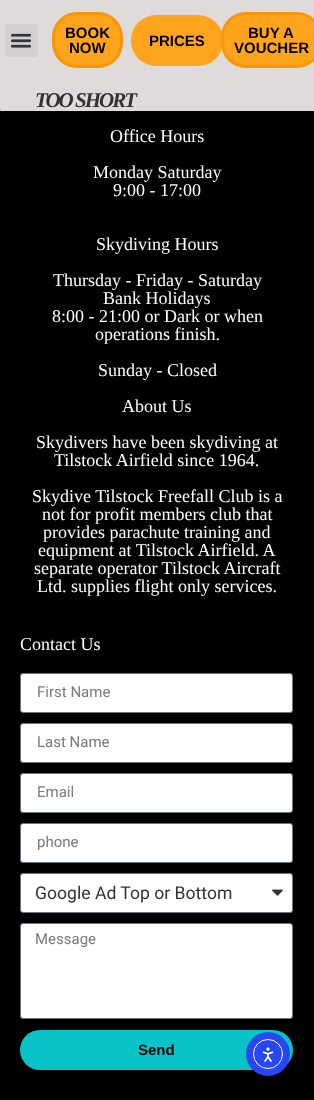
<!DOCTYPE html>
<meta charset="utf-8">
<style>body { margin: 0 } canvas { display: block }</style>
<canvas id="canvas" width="314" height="1100"></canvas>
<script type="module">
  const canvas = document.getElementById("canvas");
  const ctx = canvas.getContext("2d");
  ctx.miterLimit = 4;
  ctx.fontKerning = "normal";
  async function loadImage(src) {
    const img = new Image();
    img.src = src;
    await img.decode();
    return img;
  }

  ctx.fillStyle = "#000000";
  ctx.fillRect(0, 0, 314, 1100);
  ctx.fillStyle = "#e0dbdb";
  ctx.beginPath();
  ctx.roundRect(0, 0, 314, 111, [1, 1, 0, 1]);
  ctx.fill();
  ctx.beginPath();
  ctx.roundRect(0, 0, 314, 80, [1, 0, 1, 1]);
  ctx.fill();
  ctx.fillStyle = "#d5d0d0";
  ctx.beginPath();
  ctx.roundRect(5, 24, 33, 33, 3);
  ctx.fill();
  ctx.drawImage(await loadImage("img1.png"), 10, 33, 22, 15);
  ctx.fillStyle = "#ffa41c";
  ctx.beginPath();
  ctx.roundRect(53.5, 13.5, 68, 53, 23.5);
  ctx.fill();
  ctx.strokeStyle = "#f99806";
  ctx.lineWidth = 3;
  ctx.stroke();
  ctx.font = "bold 15px Liberation Sans";
  ctx.fillStyle = "#000000";
  ctx.fillText("BOOK", 65, 38);
  ctx.fillText("NOW", 69, 53);
  ctx.fillStyle = "#ffa41c";
  ctx.beginPath();
  ctx.roundRect(131, 15, 92, 51, 25);
  ctx.fill();
  ctx.fillStyle = "#000000";
  ctx.fillText("PRICES", 149, 46);
  ctx.fillStyle = "#ffa41c";
  ctx.beginPath();
  ctx.roundRect(222.5, 13.5, 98, 53, 23.5);
  ctx.fill();
  ctx.stroke();
  ctx.fillStyle = "#000000";
  ctx.fillText("BUY A", 248, 38);
  ctx.fillText("VOUCHER", 234, 53);
  ctx.letterSpacing = "-2px";
  ctx.font = "italic bold 21px Liberation Serif";
  ctx.fillStyle = "#333333";
  ctx.fillText("TOO SHORT", 35, 107);
  ctx.letterSpacing = "0px";
  ctx.font = "18px Liberation Serif";
  ctx.fillStyle = "#ffffff";
  ctx.fillText("Office Hours", 110, 142);
  ctx.fillText("Monday Saturday", 93, 178);
  ctx.fillText("9:00 - 17:00", 113, 196);
  ctx.fillText("Skydiving Hours", 96, 250);
  ctx.fillText("Thursday - Friday - Saturday", 53, 286);
  ctx.fillText("Bank Holidays", 103, 304);
  ctx.fillText("8:00 - 21:00 or Dark or when", 52, 322);
  ctx.fillText("operations finish.", 95, 340);
  ctx.fillText("Sunday - Closed", 98, 376);
  ctx.fillText("About Us", 122, 412);
  ctx.fillText("Skydivers have been skydiving at", 36, 448);
  ctx.fillText("Tilstock Airfield since 1964.", 54, 466);
  ctx.fillText("Skydive Tilstock Freefall Club is a", 32, 502);
  ctx.fillText("not for profit members club that", 42, 520);
  ctx.fillText("provides parachute training and", 43, 538);
  ctx.fillText("equipment at Tilstock Airfield. A", 38, 556);
  ctx.fillText("separate operator Tilstock Aircraft", 34, 574);
  ctx.fillText("Ltd. supplies flight only services.", 37, 592);
  ctx.fillText("Contact Us", 20, 650);
  ctx.beginPath();
  ctx.roundRect(20.5, 673.5, 272, 39, 2.5);
  ctx.fill();
  ctx.strokeStyle = "#69727d";
  ctx.lineWidth = 1;
  ctx.stroke();
  ctx.font = "15px Roboto";
  ctx.fillStyle = "#797a7c";
  ctx.fillText("First Name", 37, 697);
  ctx.fillStyle = "#ffffff";
  ctx.beginPath();
  ctx.roundRect(20.5, 723.5, 272, 39, 2.5);
  ctx.fill();
  ctx.stroke();
  ctx.fillStyle = "#797a7c";
  ctx.fillText("Last Name", 37, 747);
  ctx.fillStyle = "#ffffff";
  ctx.beginPath();
  ctx.roundRect(20.5, 773.5, 272, 39, 2.5);
  ctx.fill();
  ctx.stroke();
  ctx.fillStyle = "#797a7c";
  ctx.fillText("Email", 37, 797);
  ctx.fillStyle = "#ffffff";
  ctx.beginPath();
  ctx.roundRect(20.5, 823.5, 272, 39, 2.5);
  ctx.fill();
  ctx.stroke();
  ctx.fillStyle = "#797a7c";
  ctx.fillText("phone", 37, 847);
  ctx.fillStyle = "#ffffff";
  ctx.beginPath();
  ctx.roundRect(20.5, 873.5, 272, 39, 2.5);
  ctx.fill();
  ctx.stroke();
  ctx.font = "17.6px Roboto";
  ctx.fillStyle = "#333333";
  ctx.fillText("Google Ad Top or Bottom", 35, 899);
  ctx.drawImage(await loadImage("img2.png"), 272, 889, 11, 7);
  ctx.fillStyle = "#ffffff";
  ctx.beginPath();
  ctx.roundRect(20.5, 923.5, 272, 95, 2.5);
  ctx.fill();
  ctx.stroke();
  ctx.font = "15px Roboto";
  ctx.fillStyle = "#797a7c";
  ctx.fillText("Message", 35, 944);
  ctx.fillStyle = "#08c4c7";
  ctx.beginPath();
  ctx.roundRect(20, 1030, 273, 40, 20);
  ctx.fill();
  ctx.font = "bold 15px Liberation Sans";
  ctx.fillStyle = "#000000";
  ctx.fillText("Send", 138, 1055);
  ctx.fillStyle = "#2847f3";
  ctx.beginPath();
  ctx.arc(268, 1054, 22, 0, Math.PI * 2);
  ctx.fill();
  ctx.beginPath();
  ctx.arc(268, 1054, 14.5, 0, Math.PI * 2);
  ctx.strokeStyle = "#ffffff";
  ctx.stroke();
  ctx.drawImage(await loadImage("img3.png"), 262, 1047, 12, 15);
</script>
